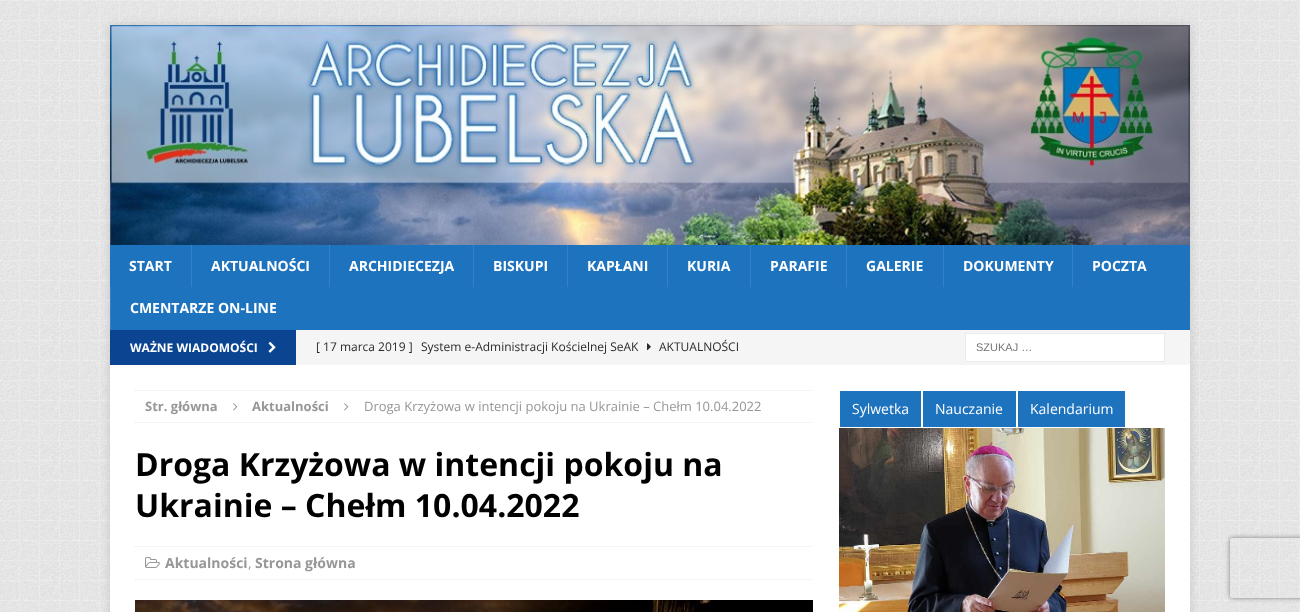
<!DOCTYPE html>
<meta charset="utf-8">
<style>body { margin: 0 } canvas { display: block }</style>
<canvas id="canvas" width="1300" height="612"></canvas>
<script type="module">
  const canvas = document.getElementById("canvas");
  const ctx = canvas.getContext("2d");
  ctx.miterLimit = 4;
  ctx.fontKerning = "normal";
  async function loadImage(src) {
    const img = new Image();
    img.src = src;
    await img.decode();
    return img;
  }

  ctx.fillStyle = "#ffffff";
  ctx.fillRect(0, 0, 1300, 612);
  ctx.drawImage(await loadImage("img1.png"), 0, 0, 1300, 612);
  ctx.fillStyle = "rgba(50, 50, 50, 0.17)";
  ctx.filter = "blur(5px)";
  ctx.beginPath();
  ctx.rect(110, 25, 1080, 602);
  ctx.fill();
  ctx.filter = "none";
  ctx.drawImage(await loadImage("img2.png"), 110, 25, 1080, 220);
  ctx.fillStyle = "#1e73be";
  ctx.fillRect(110, 245, 1080, 85);
  ctx.font = "bold 14px Open Sans";
  ctx.fillStyle = "#ffffff";
  ctx.fillText("START", 129, 271);
  ctx.fillStyle = "#3581c5";
  ctx.fillRect(191, 245, 1, 42);
  ctx.fillStyle = "#ffffff";
  ctx.fillText("AKTUALNOŚCI", 211, 271);
  ctx.fillStyle = "#3581c5";
  ctx.fillRect(329, 245, 1, 42);
  ctx.fillStyle = "#ffffff";
  ctx.fillText("ARCHIDIECEZJA", 349, 271);
  ctx.fillStyle = "#3581c5";
  ctx.fillRect(473, 245, 1, 42);
  ctx.fillStyle = "#ffffff";
  ctx.fillText("BISKUPI", 493, 271);
  ctx.fillStyle = "#3581c5";
  ctx.fillRect(567, 245, 1, 42);
  ctx.fillStyle = "#ffffff";
  ctx.fillText("KAPŁANI", 587, 271);
  ctx.fillStyle = "#3581c5";
  ctx.fillRect(667, 245, 1, 42);
  ctx.fillStyle = "#ffffff";
  ctx.fillText("KURIA", 687, 271);
  ctx.fillStyle = "#3581c5";
  ctx.fillRect(750, 245, 1, 42);
  ctx.fillStyle = "#ffffff";
  ctx.fillText("PARAFIE", 770, 271);
  ctx.fillStyle = "#3581c5";
  ctx.fillRect(846, 245, 1, 42);
  ctx.fillStyle = "#ffffff";
  ctx.fillText("GALERIE", 866, 271);
  ctx.fillStyle = "#3581c5";
  ctx.fillRect(943, 245, 1, 42);
  ctx.fillStyle = "#ffffff";
  ctx.fillText("DOKUMENTY", 963, 271);
  ctx.fillStyle = "#3581c5";
  ctx.fillRect(1072, 245, 1, 42);
  ctx.fillStyle = "#ffffff";
  ctx.fillText("POCZTA", 1092, 271);
  ctx.fillStyle = "#3581c5";
  ctx.fillRect(110, 287, 1, 43);
  ctx.fillStyle = "#ffffff";
  ctx.fillText("CMENTARZE ON-LINE", 130, 313);
  ctx.fillStyle = "#f5f5f5";
  ctx.fillRect(296, 330, 894, 35);
  ctx.fillStyle = "#0b4591";
  ctx.fillRect(110, 330, 186, 35);
  ctx.font = "bold 12px Open Sans";
  ctx.fillStyle = "#ffffff";
  ctx.fillText("WAŻNE WIADOMOŚCI", 130, 352);
  ctx.drawImage(await loadImage("img3.png"), 268, 341, 8, 12);
  ctx.font = "12px Open Sans";
  ctx.fillStyle = "#2a2a2a";
  ctx.fillText("[ 17 marca 2019 ]", 316, 351);
  ctx.fillText("System e-Administracji Kościelnej SeAK", 421, 351);
  ctx.drawImage(await loadImage("img4.png"), 647, 343, 4, 8);
  ctx.fillText("AKTUALNOŚCI", 659, 351);
  ctx.fillStyle = "#ffffff";
  ctx.beginPath();
  ctx.rect(965.5, 333.5, 199, 28);
  ctx.fill();
  ctx.strokeStyle = "#ebebeb";
  ctx.stroke();
  ctx.font = "11px Liberation Sans";
  ctx.fillStyle = "#757575";
  ctx.fillText("SZUKAJ …", 976, 351);
  ctx.fillStyle = "#ffffff";
  ctx.fillRect(110, 365, 1080, 247);
  ctx.beginPath();
  ctx.moveTo(135, 390.5);
  ctx.lineTo(813, 390.5);
  ctx.setLineDash([1, 1]);
  ctx.stroke();
  ctx.beginPath();
  ctx.moveTo(135, 422.5);
  ctx.lineTo(813, 422.5);
  ctx.stroke();
  ctx.font = "bold 13px Open Sans";
  ctx.fillStyle = "#979797";
  ctx.fillText("Str. główna", 145, 411);
  ctx.drawImage(await loadImage("img5.png"), 233, 403, 5, 8);
  ctx.fillText("Aktualności", 252, 411);
  ctx.drawImage(await loadImage("img5.png"), 344, 403, 5, 8);
  ctx.font = "13px Open Sans";
  ctx.fillText("Droga Krzyżowa w intencji pokoju na Ukrainie – Chełm 10.04.2022", 364, 411);
  ctx.font = "bold 32px Open Sans";
  ctx.fillStyle = "#000000";
  ctx.fillText("Droga Krzyżowa w intencji pokoju na", 135, 476);
  ctx.fillText("Ukrainie – Chełm 10.04.2022", 135, 517);
  ctx.beginPath();
  ctx.moveTo(135, 546.5);
  ctx.lineTo(813, 546.5);
  ctx.stroke();
  ctx.beginPath();
  ctx.moveTo(135, 579.5);
  ctx.lineTo(813, 579.5);
  ctx.stroke();
  ctx.drawImage(await loadImage("img6.png"), 145, 557, 15, 11);
  ctx.font = "bold 14px Open Sans";
  ctx.fillStyle = "#979797";
  ctx.fillText("Aktualności", 165, 568);
  ctx.font = "14px Open Sans";
  ctx.fillText(",", 248, 568);
  ctx.font = "bold 14px Open Sans";
  ctx.fillText("Strona główna", 255, 568);
  ctx.drawImage(await loadImage("img7.png"), 135, 600, 678, 12);
  ctx.fillStyle = "#1e73be";
  ctx.fillRect(840, 391, 81, 36);
  ctx.font = "14px Open Sans";
  ctx.fillStyle = "#ffffff";
  ctx.fillText("Sylwetka", 852, 414);
  ctx.fillStyle = "#1e73be";
  ctx.fillRect(923, 391, 93, 36);
  ctx.fillStyle = "#ffffff";
  ctx.fillText("Nauczanie", 935, 414);
  ctx.fillStyle = "#1e73be";
  ctx.fillRect(1018, 391, 107, 36);
  ctx.fillStyle = "#ffffff";
  ctx.fillText("Kalendarium", 1030, 414);
  ctx.drawImage(await loadImage("img8.png"), 839, 428, 326, 184);
  ctx.save();
  ctx.beginPath();
  ctx.moveTo(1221, 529);
  ctx.lineTo(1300, 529);
  ctx.lineTo(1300, 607);
  ctx.lineTo(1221, 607);
  ctx.closePath();
  ctx.moveTo(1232, 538);
  ctx.lineTo(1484, 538);
  ctx.bezierCurveTo(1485, 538, 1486, 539, 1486, 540);
  ctx.lineTo(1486, 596);
  ctx.bezierCurveTo(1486, 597, 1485, 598, 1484, 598);
  ctx.lineTo(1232, 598);
  ctx.bezierCurveTo(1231, 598, 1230, 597, 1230, 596);
  ctx.lineTo(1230, 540);
  ctx.bezierCurveTo(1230, 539, 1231, 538, 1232, 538);
  ctx.closePath();
  ctx.clip("evenodd");
  ctx.fillStyle = "#808080";
  ctx.filter = "blur(2.5px)";
  ctx.beginPath();
  ctx.roundRect(1230, 538, 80, 60, 2);
  ctx.fill();
  ctx.filter = "none";
  ctx.restore();
</script>
